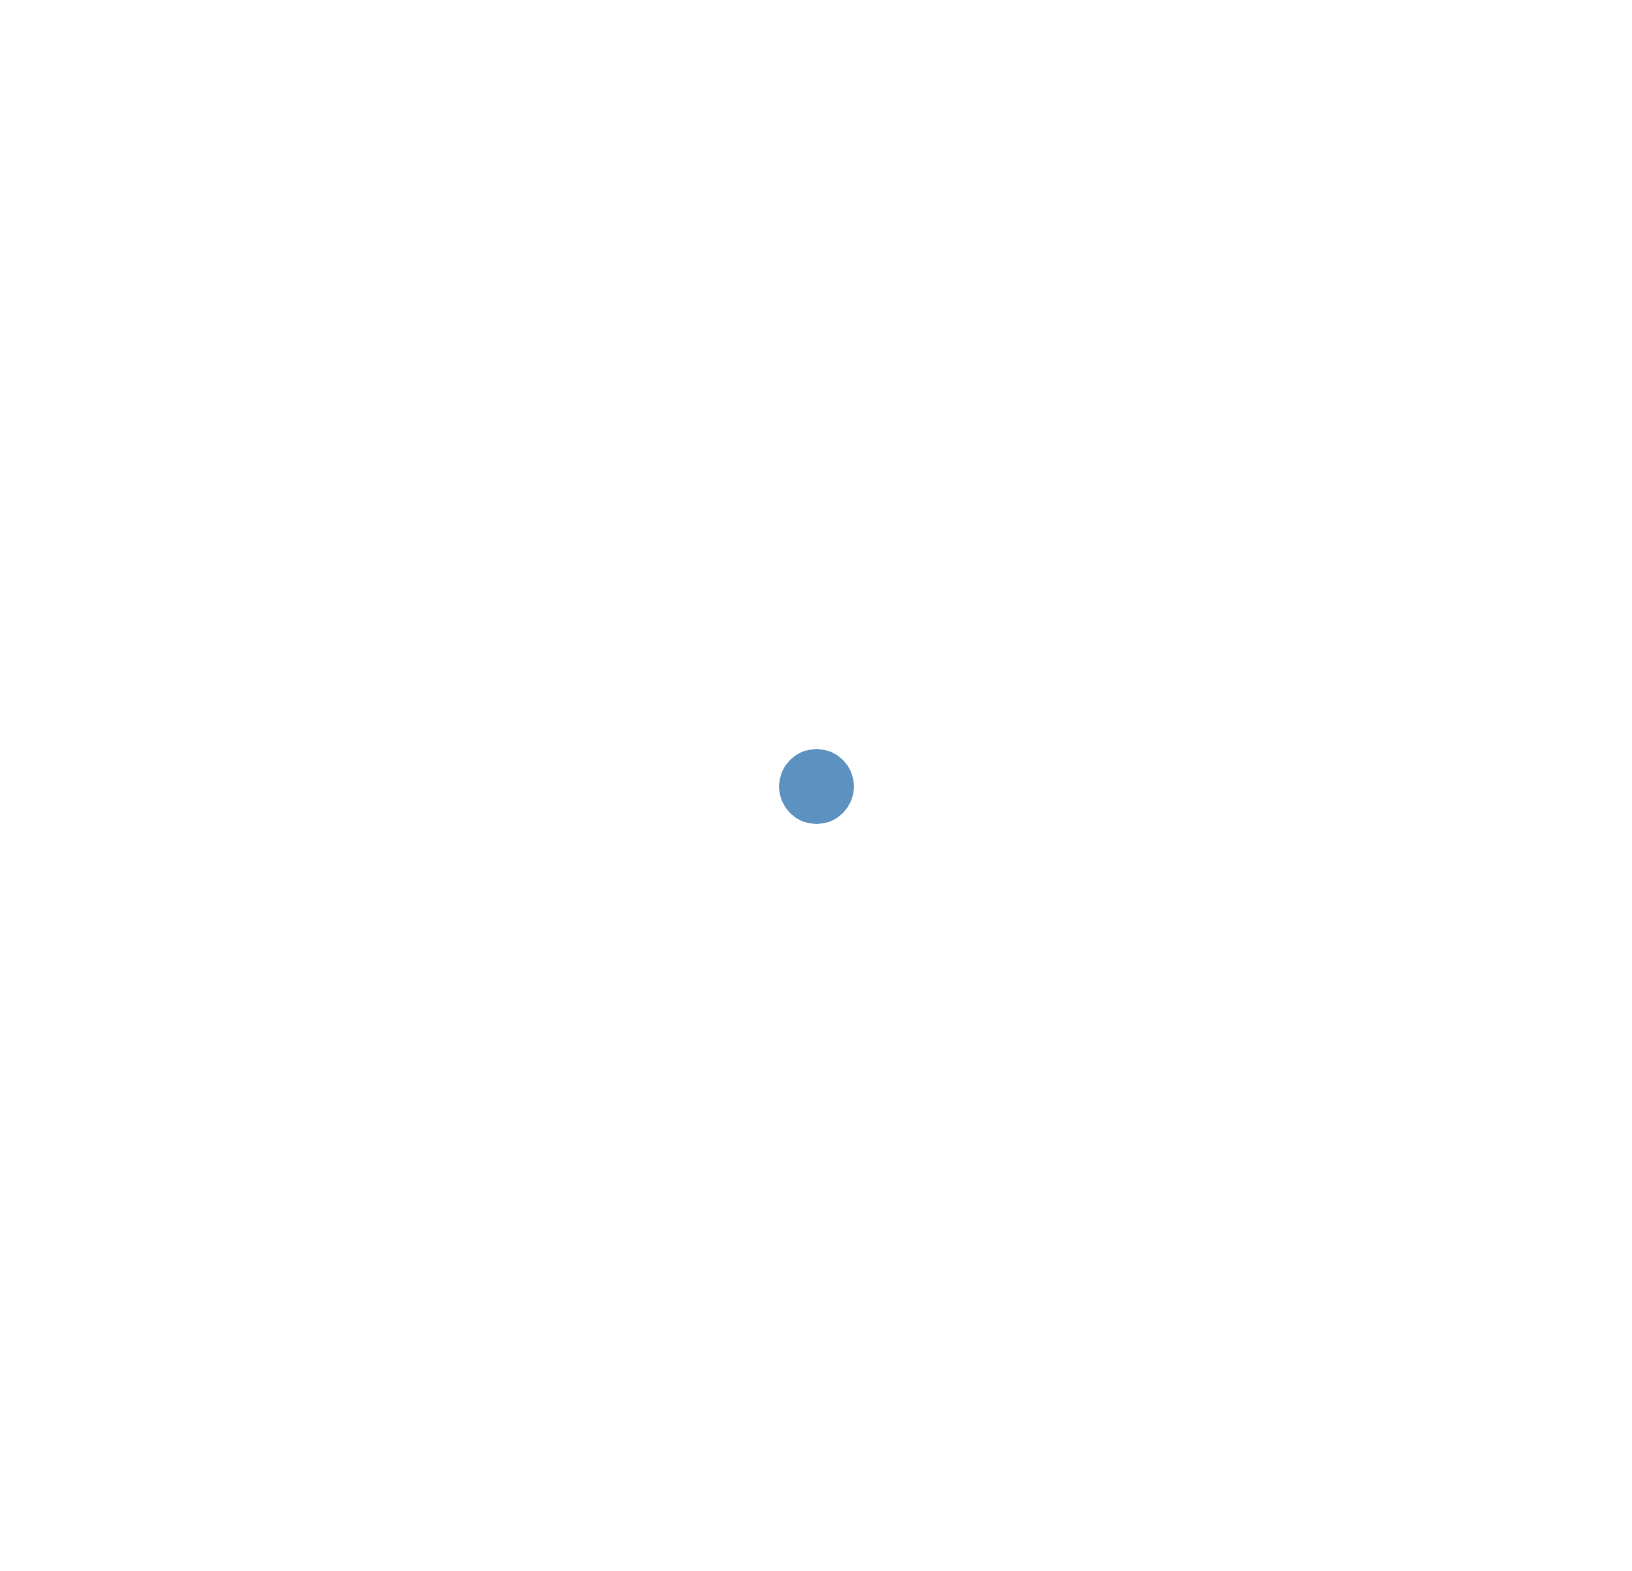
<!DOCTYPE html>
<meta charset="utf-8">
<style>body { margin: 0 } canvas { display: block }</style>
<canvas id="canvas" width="1632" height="1571"></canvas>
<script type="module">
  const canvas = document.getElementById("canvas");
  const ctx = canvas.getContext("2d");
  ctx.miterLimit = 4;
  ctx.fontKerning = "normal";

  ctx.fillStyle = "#ffffff";
  ctx.fillRect(0, 0, 1632, 1571);
  ctx.fillStyle = "#5d91bf";
  ctx.beginPath();
  ctx.arc(816.5, 786.5, 37.5, 0, Math.PI * 2);
  ctx.fill();
</script>
